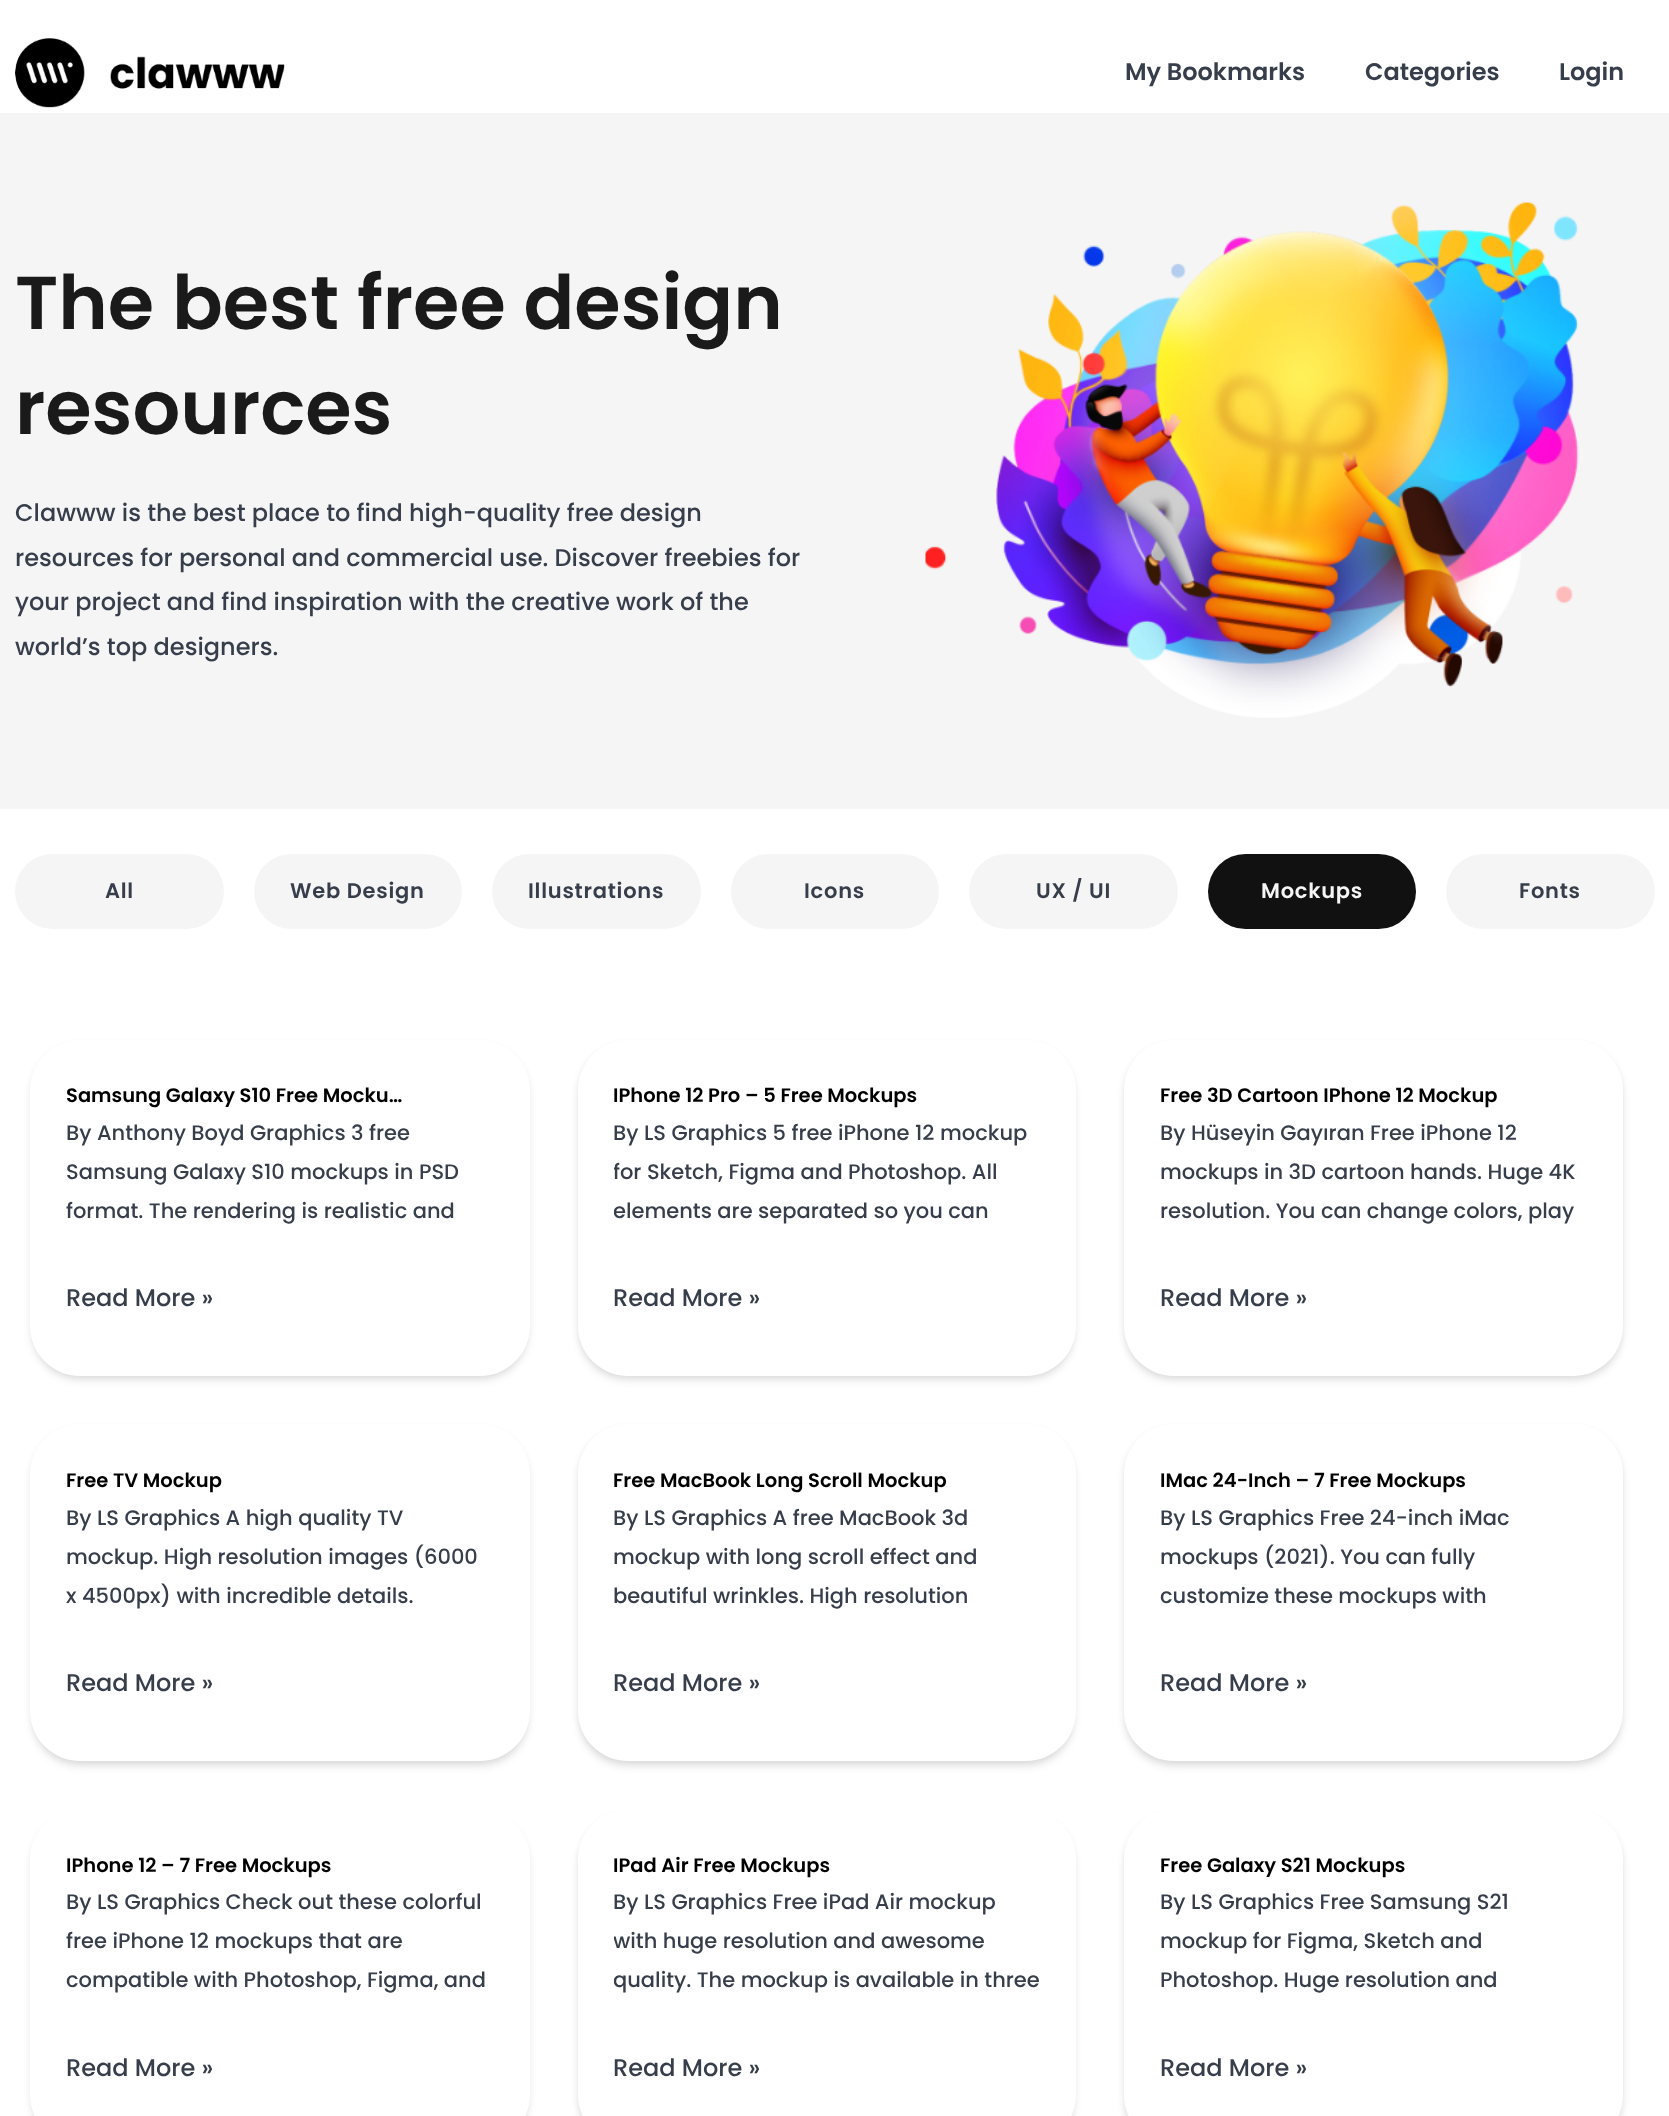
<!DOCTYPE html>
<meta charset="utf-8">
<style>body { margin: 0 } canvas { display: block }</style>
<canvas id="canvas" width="1669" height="2116"></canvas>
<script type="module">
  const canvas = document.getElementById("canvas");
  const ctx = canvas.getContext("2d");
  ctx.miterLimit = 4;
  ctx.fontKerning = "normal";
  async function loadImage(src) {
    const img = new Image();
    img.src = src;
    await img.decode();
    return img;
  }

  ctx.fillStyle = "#ffffff";
  ctx.fillRect(0, 0, 1669, 2116);
  ctx.drawImage(await loadImage("img1.png"), 15, 38, 270, 70);
  ctx.font = "600 24px Poppins";
  ctx.fillStyle = "#373e4b";
  ctx.fillText("My Bookmarks", 1125, 80);
  ctx.fillText("Categories", 1365, 80);
  ctx.fillText("Login", 1559, 80);
  ctx.fillStyle = "#f5f5f5";
  ctx.fillRect(0, 113, 1669, 696);
  ctx.font = "600 75px Poppins";
  ctx.fillStyle = "#1a1a1a";
  ctx.fillText("The best free design", 15, 329);
  ctx.fillText("resources", 15, 434);
  ctx.font = "500 24px Poppins";
  ctx.fillStyle = "#373e4b";
  ctx.fillText("Clawww is the best place to find high-quality free design", 15, 521);
  ctx.fillText("resources for personal and commercial use. Discover freebies for", 15, 566);
  ctx.fillText("your project and find inspiration with the creative work of the", 15, 610);
  ctx.fillText("world’s top designers.", 15, 655);
  ctx.drawImage(await loadImage("img2.png"), 925, 202, 654, 516);
  ctx.fillStyle = "#f5f5f5";
  ctx.beginPath();
  ctx.roundRect(15, 854, 209, 75, 37.5);
  ctx.fill();
  ctx.letterSpacing = "0.75px";
  ctx.font = "600 21px Poppins";
  ctx.fillStyle = "#373e4b";
  ctx.fillText("All", 105, 898);
  ctx.fillStyle = "#f5f5f5";
  ctx.beginPath();
  ctx.roundRect(254, 854, 208, 75, 37.5);
  ctx.fill();
  ctx.fillStyle = "#373e4b";
  ctx.fillText("Web Design", 290, 898);
  ctx.fillStyle = "#f5f5f5";
  ctx.beginPath();
  ctx.roundRect(492, 854, 209, 75, 37.5);
  ctx.fill();
  ctx.fillStyle = "#373e4b";
  ctx.fillText("Illustrations", 528, 898);
  ctx.fillStyle = "#f5f5f5";
  ctx.beginPath();
  ctx.roundRect(731, 854, 208, 75, 37.5);
  ctx.fill();
  ctx.fillStyle = "#373e4b";
  ctx.fillText("Icons", 804, 898);
  ctx.fillStyle = "#f5f5f5";
  ctx.beginPath();
  ctx.roundRect(969, 854, 209, 75, 37.5);
  ctx.fill();
  ctx.fillStyle = "#373e4b";
  ctx.fillText("UX / UI", 1036, 898);
  ctx.fillStyle = "#111111";
  ctx.beginPath();
  ctx.roundRect(1208, 854, 208, 75, 37.5);
  ctx.fill();
  ctx.fillStyle = "#f5f5f5";
  ctx.fillText("Mockups", 1261, 898);
  ctx.beginPath();
  ctx.roundRect(1446, 854, 209, 75, 37.5);
  ctx.fill();
  ctx.fillStyle = "#373e4b";
  ctx.fillText("Fonts", 1519, 898);
  ctx.fillStyle = "rgba(0, 0, 0, 0.06)";
  ctx.filter = "blur(3px)";
  ctx.beginPath();
  ctx.roundRect(32, 1044, 496, 333, 48);
  ctx.fill();
  ctx.filter = "none";
  ctx.fillStyle = "rgba(0, 0, 0, 0.1)";
  ctx.filter = "blur(4.5px)";
  ctx.beginPath();
  ctx.roundRect(32, 1047, 496, 333, 48);
  ctx.fill();
  ctx.filter = "none";
  ctx.fillStyle = "#ffffff";
  ctx.beginPath();
  ctx.roundRect(30, 1040, 500, 336, 50);
  ctx.fill();
  ctx.letterSpacing = "0px";
  ctx.font = "600 19.5px Poppins";
  ctx.fillStyle = "#000000";
  ctx.fillText("Samsung Galaxy S10 Free Mocku…", 66, 1102);
  ctx.font = "500 21px Poppins";
  ctx.fillStyle = "#373e4b";
  ctx.fillText("By Anthony Boyd Graphics 3 free", 66, 1140);
  ctx.fillText("Samsung Galaxy S10 mockups in PSD", 66, 1179);
  ctx.fillText("format. The rendering is realistic and", 66, 1218);
  ctx.font = "500 24px Poppins";
  ctx.fillText("Read More »", 66, 1306);
  ctx.fillStyle = "rgba(0, 0, 0, 0.06)";
  ctx.filter = "blur(3px)";
  ctx.beginPath();
  ctx.roundRect(579, 1044, 495, 333, 48);
  ctx.fill();
  ctx.filter = "none";
  ctx.fillStyle = "rgba(0, 0, 0, 0.1)";
  ctx.filter = "blur(4.5px)";
  ctx.beginPath();
  ctx.roundRect(579, 1047, 495, 333, 48);
  ctx.fill();
  ctx.filter = "none";
  ctx.fillStyle = "#ffffff";
  ctx.beginPath();
  ctx.roundRect(578, 1040, 498, 336, 50);
  ctx.fill();
  ctx.font = "600 19.5px Poppins";
  ctx.fillStyle = "#000000";
  ctx.fillText("IPhone 12 Pro – 5 Free Mockups", 613, 1102);
  ctx.font = "500 21px Poppins";
  ctx.fillStyle = "#373e4b";
  ctx.fillText("By LS Graphics 5 free iPhone 12 mockup", 613, 1140);
  ctx.save();
  ctx.beginPath();
  ctx.rect(614, 1113, 426, 128);
  ctx.clip();
  ctx.fillText("for Sketch, Figma and Photoshop. All", 613, 1179);
  ctx.fillText("elements are separated so you can", 613, 1218);
  ctx.restore();
  ctx.font = "500 24px Poppins";
  ctx.fillText("Read More »", 613, 1306);
  ctx.fillStyle = "rgba(0, 0, 0, 0.06)";
  ctx.filter = "blur(3px)";
  ctx.beginPath();
  ctx.roundRect(1125, 1044, 497, 333, 48);
  ctx.fill();
  ctx.filter = "none";
  ctx.fillStyle = "rgba(0, 0, 0, 0.1)";
  ctx.filter = "blur(4.5px)";
  ctx.beginPath();
  ctx.roundRect(1125, 1047, 497, 333, 48);
  ctx.fill();
  ctx.filter = "none";
  ctx.fillStyle = "#ffffff";
  ctx.beginPath();
  ctx.roundRect(1124, 1040, 499, 336, 50);
  ctx.fill();
  ctx.font = "600 19.5px Poppins";
  ctx.fillStyle = "#000000";
  ctx.fillText("Free 3D Cartoon IPhone 12 Mockup", 1160, 1102);
  ctx.font = "500 21px Poppins";
  ctx.fillStyle = "#373e4b";
  ctx.fillText("By Hüseyin Gayıran Free iPhone 12", 1160, 1140);
  ctx.fillText("mockups in 3D cartoon hands. Huge 4K", 1160, 1179);
  ctx.fillText("resolution. You can change colors, play", 1160, 1218);
  ctx.font = "500 24px Poppins";
  ctx.fillText("Read More »", 1160, 1306);
  ctx.fillStyle = "rgba(0, 0, 0, 0.06)";
  ctx.filter = "blur(3px)";
  ctx.beginPath();
  ctx.roundRect(32, 1428, 496, 335, 48);
  ctx.fill();
  ctx.filter = "none";
  ctx.fillStyle = "rgba(0, 0, 0, 0.1)";
  ctx.filter = "blur(4.5px)";
  ctx.beginPath();
  ctx.roundRect(32, 1431, 496, 335, 48);
  ctx.fill();
  ctx.filter = "none";
  ctx.fillStyle = "#ffffff";
  ctx.beginPath();
  ctx.roundRect(30, 1424, 500, 337, 50);
  ctx.fill();
  ctx.font = "600 19.5px Poppins";
  ctx.fillStyle = "#000000";
  ctx.fillText("Free TV Mockup", 66, 1487);
  ctx.font = "500 21px Poppins";
  ctx.fillStyle = "#373e4b";
  ctx.fillText("By LS Graphics A high quality TV", 66, 1525);
  ctx.fillText("mockup. High resolution images (6000", 66, 1564);
  ctx.fillText("x 4500px) with incredible details.", 66, 1603);
  ctx.font = "500 24px Poppins";
  ctx.fillText("Read More »", 66, 1691);
  ctx.fillStyle = "rgba(0, 0, 0, 0.06)";
  ctx.filter = "blur(3px)";
  ctx.beginPath();
  ctx.roundRect(579, 1428, 495, 335, 48);
  ctx.fill();
  ctx.filter = "none";
  ctx.fillStyle = "rgba(0, 0, 0, 0.1)";
  ctx.filter = "blur(4.5px)";
  ctx.beginPath();
  ctx.roundRect(579, 1431, 495, 335, 48);
  ctx.fill();
  ctx.filter = "none";
  ctx.fillStyle = "#ffffff";
  ctx.beginPath();
  ctx.roundRect(578, 1424, 498, 337, 50);
  ctx.fill();
  ctx.font = "600 19.5px Poppins";
  ctx.fillStyle = "#000000";
  ctx.fillText("Free MacBook Long Scroll Mockup", 613, 1487);
  ctx.font = "500 21px Poppins";
  ctx.fillStyle = "#373e4b";
  ctx.fillText("By LS Graphics A free MacBook 3d", 613, 1525);
  ctx.fillText("mockup with long scroll effect and", 613, 1564);
  ctx.fillText("beautiful wrinkles. High resolution", 613, 1603);
  ctx.font = "500 24px Poppins";
  ctx.fillText("Read More »", 613, 1691);
  ctx.fillStyle = "rgba(0, 0, 0, 0.06)";
  ctx.filter = "blur(3px)";
  ctx.beginPath();
  ctx.roundRect(1125, 1428, 497, 335, 48);
  ctx.fill();
  ctx.filter = "none";
  ctx.fillStyle = "rgba(0, 0, 0, 0.1)";
  ctx.filter = "blur(4.5px)";
  ctx.beginPath();
  ctx.roundRect(1125, 1431, 497, 335, 48);
  ctx.fill();
  ctx.filter = "none";
  ctx.fillStyle = "#ffffff";
  ctx.beginPath();
  ctx.roundRect(1124, 1424, 499, 337, 50);
  ctx.fill();
  ctx.font = "600 19.5px Poppins";
  ctx.fillStyle = "#000000";
  ctx.fillText("IMac 24-Inch – 7 Free Mockups", 1160, 1487);
  ctx.font = "500 21px Poppins";
  ctx.fillStyle = "#373e4b";
  ctx.fillText("By LS Graphics Free 24-inch iMac", 1160, 1525);
  ctx.fillText("mockups (2021). You can fully", 1160, 1564);
  ctx.fillText("customize these mockups with", 1160, 1603);
  ctx.font = "500 24px Poppins";
  ctx.fillText("Read More »", 1160, 1691);
  ctx.fillStyle = "rgba(0, 0, 0, 0.06)";
  ctx.filter = "blur(3px)";
  ctx.beginPath();
  ctx.roundRect(32, 1814, 496, 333, 48);
  ctx.fill();
  ctx.filter = "none";
  ctx.fillStyle = "rgba(0, 0, 0, 0.1)";
  ctx.filter = "blur(4.5px)";
  ctx.beginPath();
  ctx.roundRect(32, 1817, 496, 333, 48);
  ctx.fill();
  ctx.filter = "none";
  ctx.fillStyle = "#ffffff";
  ctx.beginPath();
  ctx.roundRect(30, 1809, 500, 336, 50);
  ctx.fill();
  ctx.font = "600 19.5px Poppins";
  ctx.fillStyle = "#000000";
  ctx.fillText("IPhone 12 – 7 Free Mockups", 66, 1872);
  ctx.font = "500 21px Poppins";
  ctx.fillStyle = "#373e4b";
  ctx.fillText("By LS Graphics Check out these colorful", 66, 1909);
  ctx.fillText("free iPhone 12 mockups that are", 66, 1948);
  ctx.fillText("compatible with Photoshop, Figma, and", 66, 1987);
  ctx.font = "500 24px Poppins";
  ctx.fillText("Read More »", 66, 2076);
  ctx.fillStyle = "rgba(0, 0, 0, 0.06)";
  ctx.filter = "blur(3px)";
  ctx.beginPath();
  ctx.roundRect(579, 1814, 495, 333, 48);
  ctx.fill();
  ctx.filter = "none";
  ctx.fillStyle = "rgba(0, 0, 0, 0.1)";
  ctx.filter = "blur(4.5px)";
  ctx.beginPath();
  ctx.roundRect(579, 1817, 495, 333, 48);
  ctx.fill();
  ctx.filter = "none";
  ctx.fillStyle = "#ffffff";
  ctx.beginPath();
  ctx.roundRect(578, 1809, 498, 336, 50);
  ctx.fill();
  ctx.font = "600 19.5px Poppins";
  ctx.fillStyle = "#000000";
  ctx.fillText("IPad Air Free Mockups", 613, 1872);
  ctx.font = "500 21px Poppins";
  ctx.fillStyle = "#373e4b";
  ctx.fillText("By LS Graphics Free iPad Air mockup", 613, 1909);
  ctx.save();
  ctx.beginPath();
  ctx.rect(614, 1883, 426, 127);
  ctx.clip();
  ctx.fillText("with huge resolution and awesome", 613, 1948);
  ctx.fillText("quality. The mockup is available in three", 613, 1987);
  ctx.restore();
  ctx.font = "500 24px Poppins";
  ctx.fillText("Read More »", 613, 2076);
  ctx.fillStyle = "rgba(0, 0, 0, 0.06)";
  ctx.filter = "blur(3px)";
  ctx.beginPath();
  ctx.roundRect(1125, 1814, 497, 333, 48);
  ctx.fill();
  ctx.filter = "none";
  ctx.fillStyle = "rgba(0, 0, 0, 0.1)";
  ctx.filter = "blur(4.5px)";
  ctx.beginPath();
  ctx.roundRect(1125, 1817, 497, 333, 48);
  ctx.fill();
  ctx.filter = "none";
  ctx.fillStyle = "#ffffff";
  ctx.beginPath();
  ctx.roundRect(1124, 1809, 499, 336, 50);
  ctx.fill();
  ctx.font = "600 19.5px Poppins";
  ctx.fillStyle = "#000000";
  ctx.fillText("Free Galaxy S21 Mockups", 1160, 1872);
  ctx.font = "500 21px Poppins";
  ctx.fillStyle = "#373e4b";
  ctx.fillText("By LS Graphics Free Samsung S21", 1160, 1909);
  ctx.fillText("mockup for Figma, Sketch and", 1160, 1948);
  ctx.fillText("Photoshop. Huge resolution and", 1160, 1987);
  ctx.font = "500 24px Poppins";
  ctx.fillText("Read More »", 1160, 2076);
</script>
